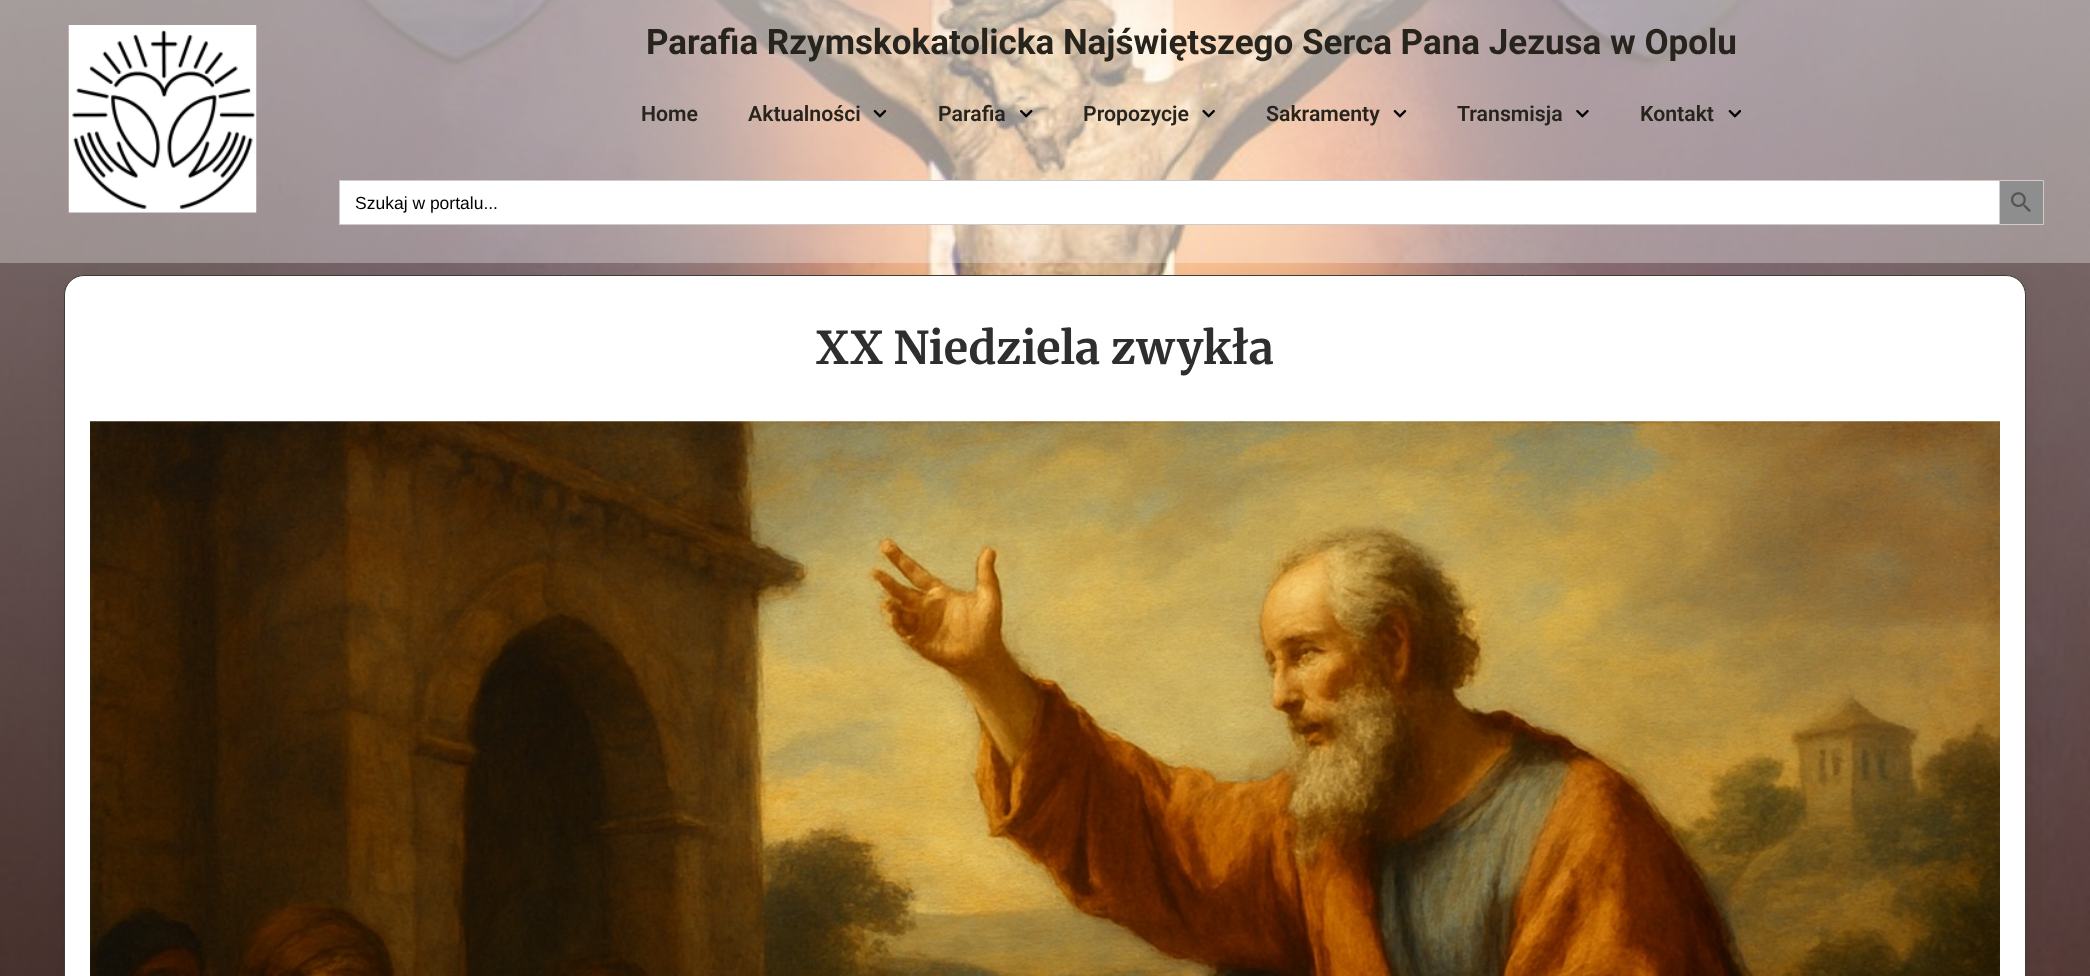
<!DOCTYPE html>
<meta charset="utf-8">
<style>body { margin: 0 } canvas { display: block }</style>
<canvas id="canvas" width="2090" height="976"></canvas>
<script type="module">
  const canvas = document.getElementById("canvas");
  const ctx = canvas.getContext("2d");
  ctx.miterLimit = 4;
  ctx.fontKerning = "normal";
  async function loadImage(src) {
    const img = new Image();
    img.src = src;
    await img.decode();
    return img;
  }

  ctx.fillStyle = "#ffffff";
  ctx.fillRect(0, 0, 2090, 976);
  ctx.drawImage(await loadImage("img1.png"), 0, 0, 2090, 976);
  ctx.fillStyle = "rgba(255, 255, 255, 0.3)";
  ctx.fillRect(0, 0, 2090, 263);
  ctx.drawImage(await loadImage("img2.png"), 68, 25, 189, 188);
  ctx.font = "bold 35px Roboto";
  ctx.fillStyle = "#27241d";
  ctx.fillText("Parafia Rzymskokatolicka Najświętszego Serca Pana Jezusa w Opolu", 646, 54);
  ctx.font = "600 21.25px Roboto";
  ctx.fillText("Home", 641, 121);
  ctx.fillText("Aktualności", 748, 121);
  ctx.drawImage(await loadImage("img3.png"), 873, 109, 14, 9);
  ctx.fillText("Parafia", 938, 121);
  ctx.drawImage(await loadImage("img4.png"), 1019, 109, 14, 9);
  ctx.fillText("Propozycje", 1083, 121);
  ctx.drawImage(await loadImage("img5.png"), 1202, 109, 13, 9);
  ctx.fillText("Sakramenty", 1266, 121);
  ctx.drawImage(await loadImage("img6.png"), 1393, 109, 14, 9);
  ctx.fillText("Transmisja", 1457, 121);
  ctx.drawImage(await loadImage("img7.png"), 1576, 109, 13, 9);
  ctx.fillText("Kontakt", 1640, 121);
  ctx.drawImage(await loadImage("img8.png"), 1728, 109, 13, 9);
  ctx.fillStyle = "#ffffff";
  ctx.fillRect(340, 181, 1659, 43);
  ctx.fillStyle = "#cccccc";
  ctx.fillRect(339, 180, 1660, 1);
  ctx.fillRect(339, 224, 1660, 1);
  ctx.fillRect(339, 180, 1, 45);
  ctx.font = "17.5px Liberation Sans";
  ctx.fillStyle = "#000000";
  ctx.fillText("Szukaj w portalu...", 355, 209);
  ctx.fillStyle = "#8e8e8e";
  ctx.beginPath();
  ctx.rect(1999.5, 180.5, 44, 44);
  ctx.fill();
  ctx.strokeStyle = "#cccccc";
  ctx.stroke();
  ctx.drawImage(await loadImage("img9.png"), 2011, 192, 20, 20);
  ctx.fillStyle = "rgba(0, 0, 0, 0.05)";
  ctx.filter = "blur(9.5px)";
  ctx.beginPath();
  ctx.roundRect(64, 281, 1962, 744, 20);
  ctx.fill();
  ctx.filter = "none";
  ctx.fillStyle = "#ffffff";
  ctx.beginPath();
  ctx.roundRect(64.5, 275.5, 1961, 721, 19.5);
  ctx.fill();
  ctx.strokeStyle = "#423d33";
  ctx.stroke();
  ctx.font = "bold 45px Merriweather";
  ctx.fillStyle = "#2e2e2e";
  ctx.fillText("XX Niedziela zwykła", 816, 364);
  ctx.drawImage(await loadImage("img10.png"), 90, 421, 1910, 555);
</script>
